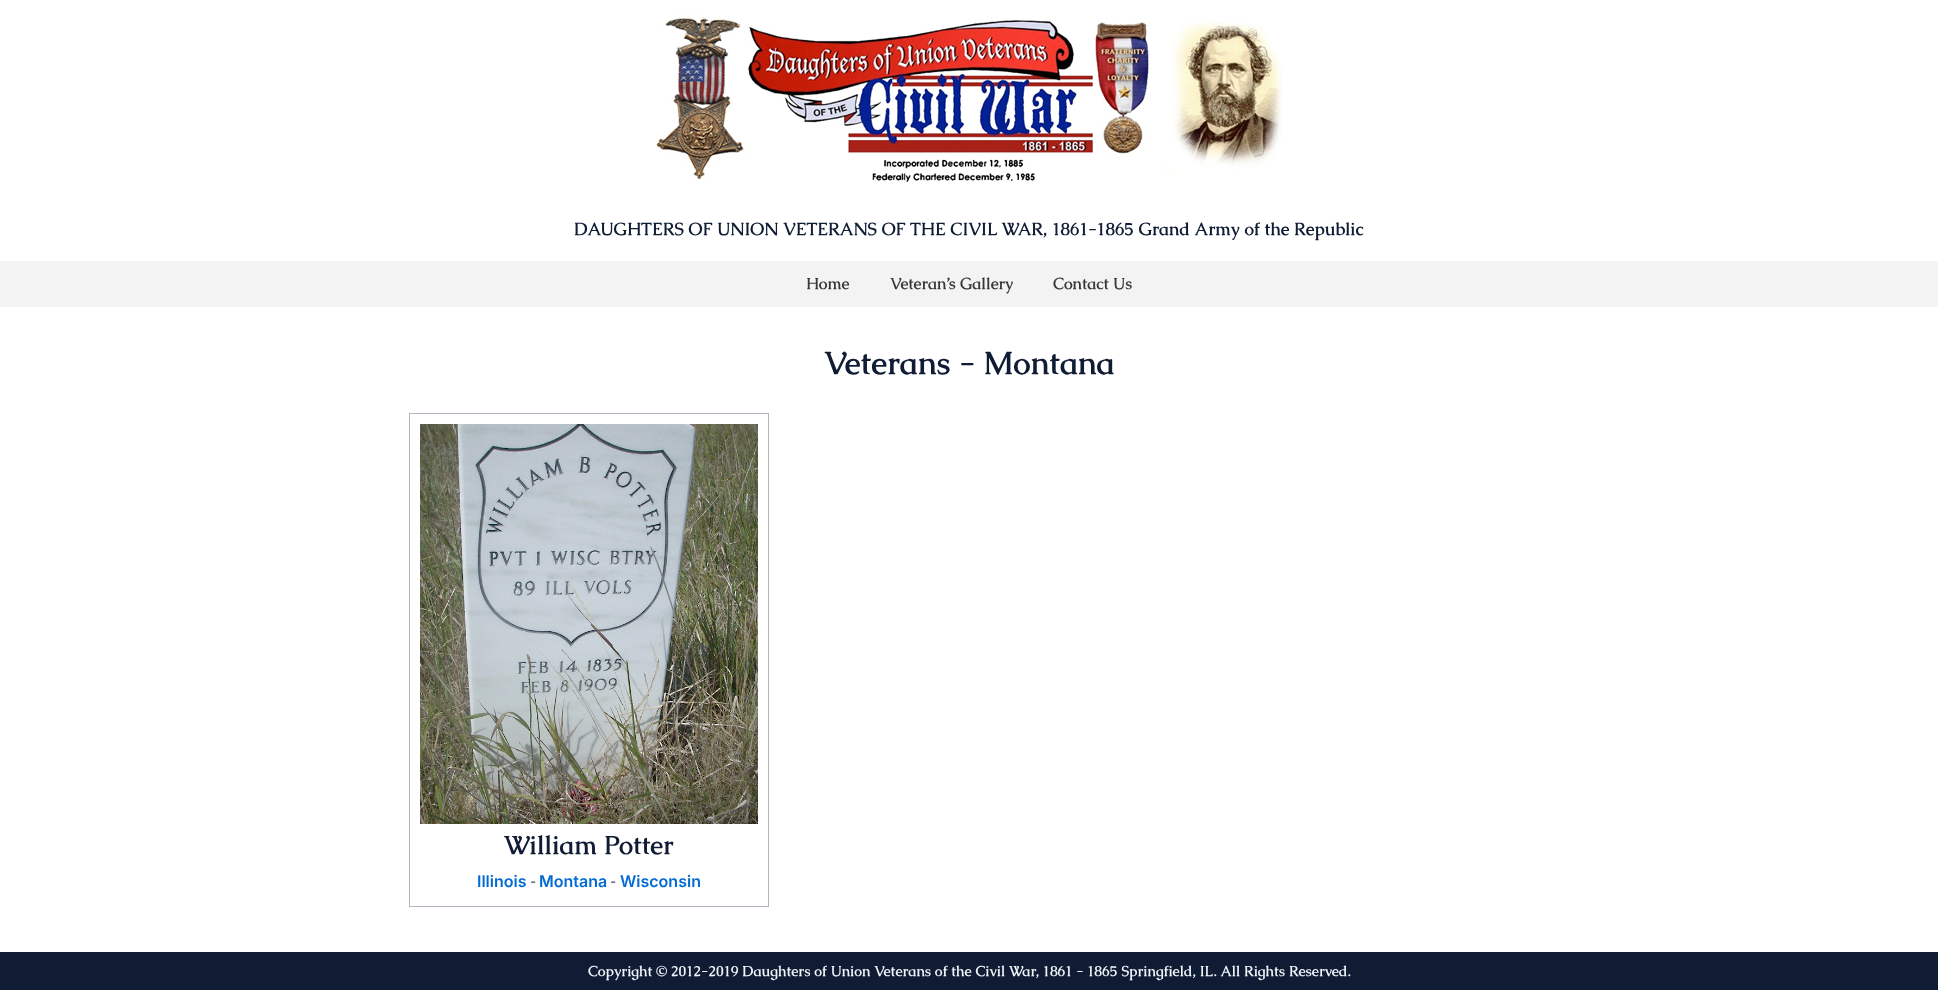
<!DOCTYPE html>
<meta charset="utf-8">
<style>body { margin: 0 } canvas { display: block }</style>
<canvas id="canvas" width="1938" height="990"></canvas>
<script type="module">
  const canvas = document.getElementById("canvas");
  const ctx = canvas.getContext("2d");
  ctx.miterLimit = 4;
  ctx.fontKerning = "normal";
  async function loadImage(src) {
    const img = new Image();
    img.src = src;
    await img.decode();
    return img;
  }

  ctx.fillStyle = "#ffffff";
  ctx.fillRect(0, 0, 1938, 990);
  ctx.drawImage(await loadImage("img1.png"), 656, 14, 627, 168);
  ctx.font = "bold 17.6px Caudex";
  ctx.fillStyle = "#0f1c34";
  ctx.fillText("DAUGHTERS OF UNION VETERANS OF THE CIVIL WAR, 1861-1865 Grand Army of the Republic", 574, 235);
  ctx.fillStyle = "#f3f3f3";
  ctx.fillRect(0, 261, 1938, 46);
  ctx.font = "bold 16px Caudex";
  ctx.fillStyle = "#383838";
  ctx.fillText("Home", 806, 289);
  ctx.fillText("Veteran’s Gallery", 890, 289);
  ctx.fillText("Contact Us", 1053, 289);
  ctx.font = "bold 32px Caudex";
  ctx.fillStyle = "#0f1c34";
  ctx.fillText("Veterans - Montana", 824, 374);
  ctx.strokeStyle = "#adb6be";
  ctx.strokeRect(409.5, 413.5, 359, 493);
  ctx.drawImage(await loadImage("img2.png"), 420, 424, 338, 400);
  ctx.font = "bold 26px Caudex";
  ctx.fillText("William Potter", 504, 854);
  ctx.font = "600 16px Inter";
  ctx.fillStyle = "#046bd2";
  ctx.fillText("Illinois", 477, 887);
  ctx.font = "16px Roboto";
  ctx.fillStyle = "#334155";
  ctx.fillText("-", 531, 887);
  ctx.font = "600 16px Inter";
  ctx.fillStyle = "#046bd2";
  ctx.fillText("Montana", 539, 887);
  ctx.font = "16px Roboto";
  ctx.fillStyle = "#334155";
  ctx.fillText("-", 611, 887);
  ctx.font = "600 16px Inter";
  ctx.fillStyle = "#046bd2";
  ctx.fillText("Wisconsin", 620, 887);
  ctx.fillStyle = "#0f1c34";
  ctx.fillRect(0, 952, 1938, 38);
  ctx.font = "bold 14.4px Caudex";
  ctx.fillStyle = "#f0f5fa";
  ctx.fillText("Copyright © 2012-2019 Daughters of Union Veterans of the Civil War, 1861 - 1865 Springfield, IL. All Rights Reserved.", 588, 976);
</script>
